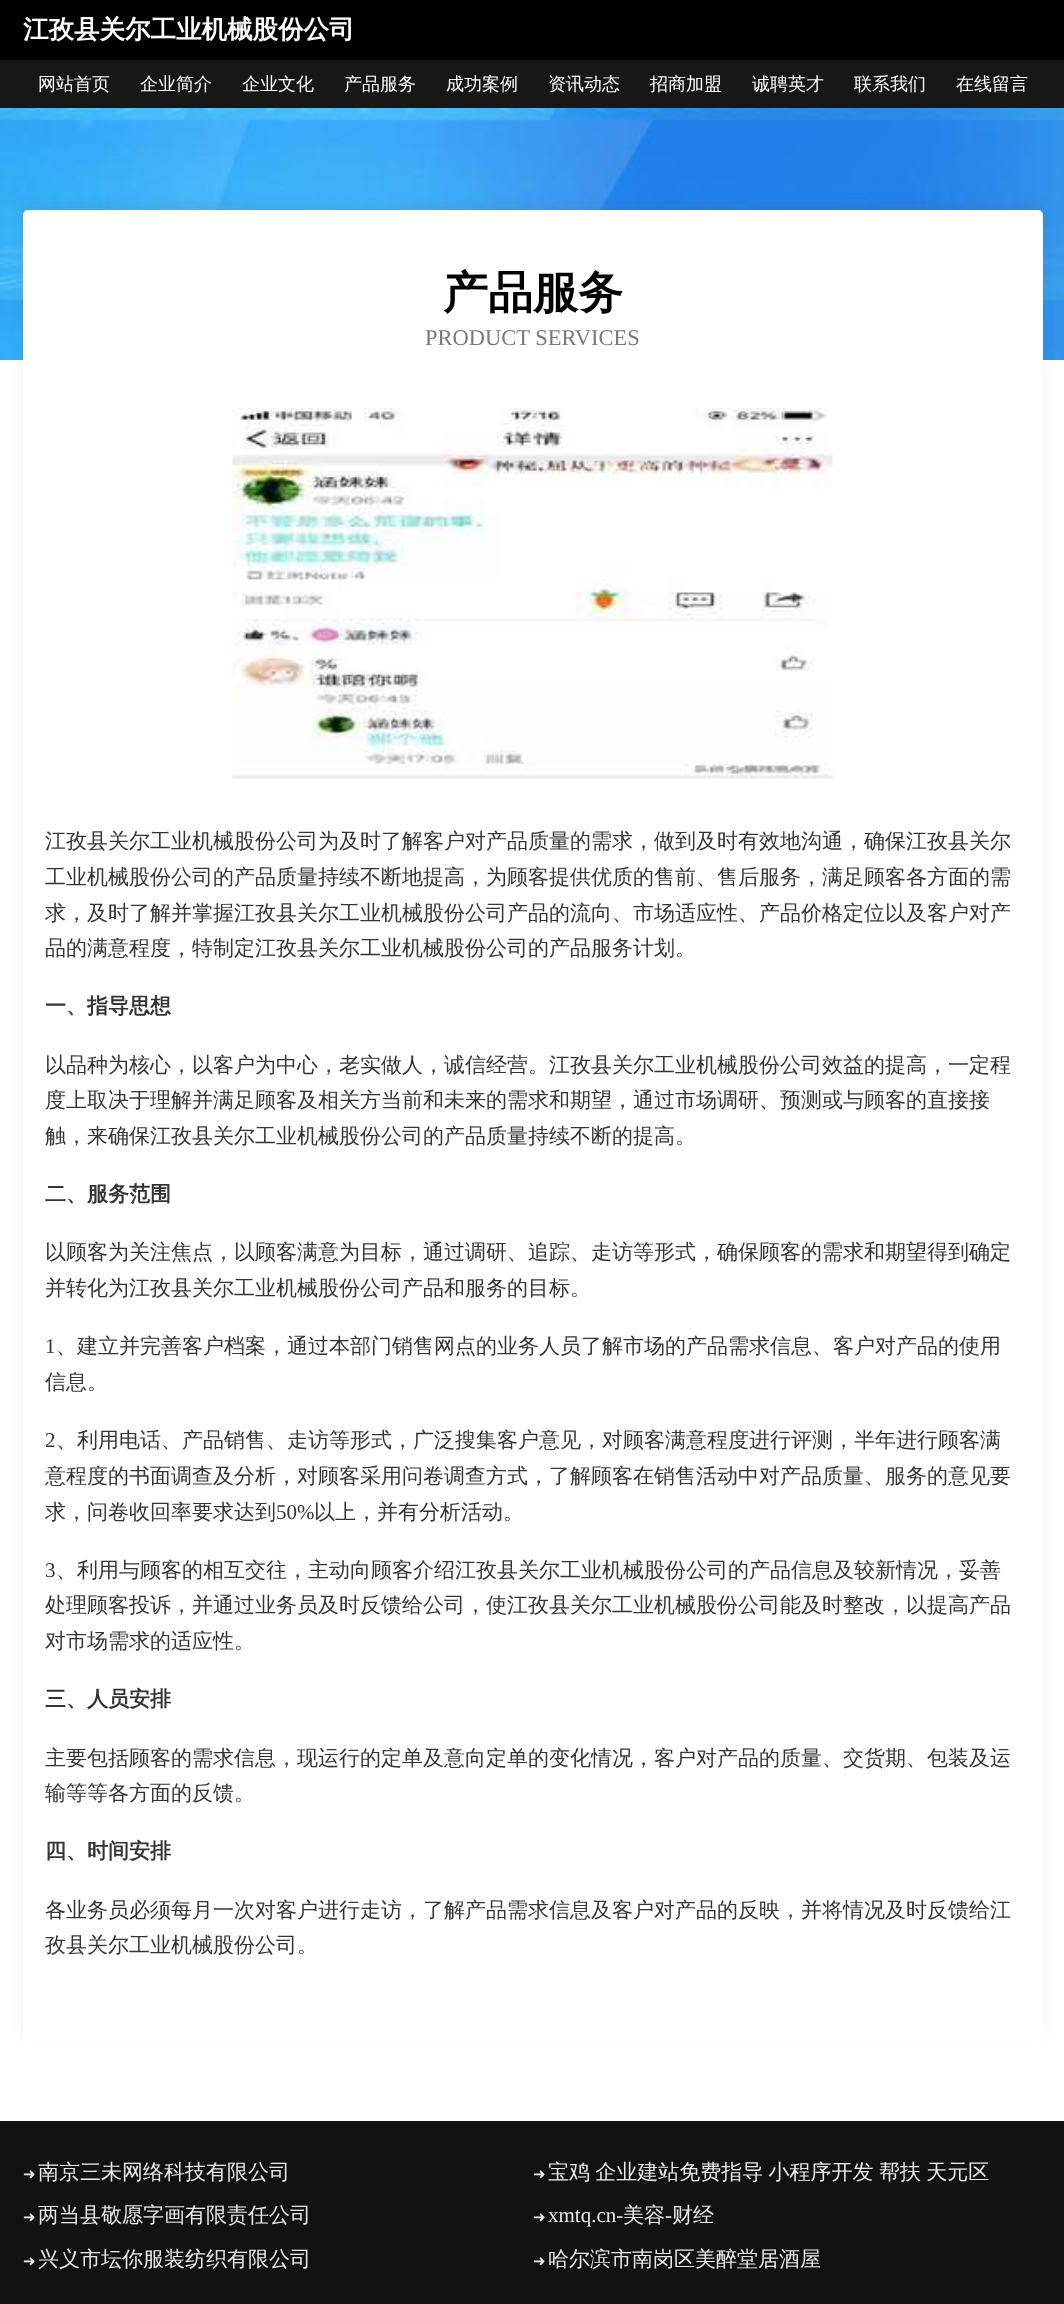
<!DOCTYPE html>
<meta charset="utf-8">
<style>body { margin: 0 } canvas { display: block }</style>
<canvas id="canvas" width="1064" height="2304"></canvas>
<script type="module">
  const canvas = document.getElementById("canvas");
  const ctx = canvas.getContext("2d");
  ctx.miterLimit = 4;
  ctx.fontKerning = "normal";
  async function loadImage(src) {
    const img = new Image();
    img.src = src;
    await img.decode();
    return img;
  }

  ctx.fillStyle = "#ffffff";
  ctx.fillRect(0, 0, 1064, 2304);
  ctx.fillStyle = "#000000";
  ctx.fillRect(0, 0, 1064, 60);
  ctx.font = "bold 25.5px WenQuanYi Zen Hei";
  ctx.fillStyle = "#ffffff";
  ctx.fillText("江孜县关尔工业机械股份公司", 23, 38);
  ctx.fillStyle = "#171717";
  ctx.fillRect(0, 60, 1064, 48);
  ctx.font = "500 18px WenQuanYi Zen Hei";
  ctx.fillStyle = "#ffffff";
  ctx.fillText("网站首页", 38, 90);
  ctx.fillText("企业简介", 140, 90);
  ctx.fillText("企业文化", 242, 90);
  ctx.fillText("产品服务", 344, 90);
  ctx.fillText("成功案例", 446, 90);
  ctx.fillText("资讯动态", 548, 90);
  ctx.fillText("招商加盟", 650, 90);
  ctx.fillText("诚聘英才", 752, 90);
  ctx.fillText("联系我们", 854, 90);
  ctx.fillText("在线留言", 956, 90);
  ctx.drawImage(await loadImage("img1.png"), 0, 108, 1064, 252);
  ctx.fillStyle = "rgba(66, 66, 66, 0.09)";
  ctx.filter = "blur(7px)";
  ctx.beginPath();
  ctx.roundRect(24, 204, 1017, 1833, 3);
  ctx.fill();
  ctx.filter = "none";
  ctx.fillStyle = "#ffffff";
  ctx.beginPath();
  ctx.roundRect(23, 210, 1020, 1836, 5);
  ctx.fill();
  ctx.font = "bold 45px WenQuanYi Zen Hei";
  ctx.fillStyle = "#000000";
  ctx.fillText("产品服务", 443, 308);
  ctx.font = "22.5px Liberation Serif";
  ctx.fillStyle = "#787878";
  ctx.fillText("PRODUCT SERVICES", 425, 345);
  ctx.drawImage(await loadImage("img2.png"), 232, 408, 601, 371);
  ctx.font = "500 21px WenQuanYi Zen Hei";
  ctx.fillStyle = "#343434";
  ctx.fillText("江孜县关尔工业机械股份公司为及时了解客户对产品质量的需求，做到及时有效地沟通，确保江孜县关尔", 45, 848);
  ctx.fillText("工业机械股份公司的产品质量持续不断地提高，为顾客提供优质的售前、售后服务，满足顾客各方面的需", 45, 884);
  ctx.fillText("求，及时了解并掌握江孜县关尔工业机械股份公司产品的流向、市场适应性、产品价格定位以及客户对产", 45, 920);
  ctx.fillText("品的满意程度，特制定江孜县关尔工业机械股份公司的产品服务计划。", 45, 955);
  ctx.font = "bold 21px WenQuanYi Zen Hei";
  ctx.fillText("一、指导思想", 45, 1013);
  ctx.font = "500 21px WenQuanYi Zen Hei";
  ctx.fillText("以品种为核心，以客户为中心，老实做人，诚信经营。江孜县关尔工业机械股份公司效益的提高，一定程", 45, 1072);
  ctx.fillText("度上取决于理解并满足顾客及相关方当前和未来的需求和期望，通过市场调研、预测或与顾客的直接接", 45, 1107);
  ctx.fillText("触，来确保江孜县关尔工业机械股份公司的产品质量持续不断的提高。", 45, 1143);
  ctx.font = "bold 21px WenQuanYi Zen Hei";
  ctx.fillText("二、服务范围", 45, 1201);
  ctx.font = "500 21px WenQuanYi Zen Hei";
  ctx.fillText("以顾客为关注焦点，以顾客满意为目标，通过调研、追踪、走访等形式，确保顾客的需求和期望得到确定", 45, 1259);
  ctx.fillText("并转化为江孜县关尔工业机械股份公司产品和服务的目标。", 45, 1295);
  ctx.font = "21px Liberation Serif";
  ctx.fillText("1", 45, 1353);
  ctx.font = "500 21px WenQuanYi Zen Hei";
  ctx.fillText("、建立并完善客户档案，通过本部门销售网点的业务人员了解市场的产品需求信息、客户对产品的使用", 56, 1353);
  ctx.fillText("信息。", 45, 1389);
  ctx.font = "21px Liberation Serif";
  ctx.fillText("2", 45, 1447);
  ctx.font = "500 21px WenQuanYi Zen Hei";
  ctx.fillText("、利用电话、产品销售、走访等形式，广泛搜集客户意见，对顾客满意程度进行评测，半年进行顾客满", 56, 1447);
  ctx.fillText("意程度的书面调查及分析，对顾客采用问卷调查方式，了解顾客在销售活动中对产品质量、服务的意见要", 45, 1483);
  ctx.fillText("求，问卷收回率要求达到", 45, 1519);
  ctx.font = "21px Liberation Serif";
  ctx.fillText("50%", 276, 1519);
  ctx.font = "500 21px WenQuanYi Zen Hei";
  ctx.fillText("以上，并有分析活动。", 314, 1519);
  ctx.font = "21px Liberation Serif";
  ctx.fillText("3", 45, 1577);
  ctx.font = "500 21px WenQuanYi Zen Hei";
  ctx.fillText("、利用与顾客的相互交往，主动向顾客介绍江孜县关尔工业机械股份公司的产品信息及较新情况，妥善", 56, 1577);
  ctx.fillText("处理顾客投诉，并通过业务员及时反馈给公司，使江孜县关尔工业机械股份公司能及时整改，以提高产品", 45, 1612);
  ctx.fillText("对市场需求的适应性。", 45, 1648);
  ctx.font = "bold 21px WenQuanYi Zen Hei";
  ctx.fillText("三、人员安排", 45, 1706);
  ctx.font = "500 21px WenQuanYi Zen Hei";
  ctx.fillText("主要包括顾客的需求信息，现运行的定单及意向定单的变化情况，客户对产品的质量、交货期、包装及运", 45, 1765);
  ctx.fillText("输等等各方面的反馈。", 45, 1800);
  ctx.font = "bold 21px WenQuanYi Zen Hei";
  ctx.fillText("四、时间安排", 45, 1858);
  ctx.font = "500 21px WenQuanYi Zen Hei";
  ctx.fillText("各业务员必须每月一次对客户进行走访，了解产品需求信息及客户对产品的反映，并将情况及时反馈给江", 45, 1917);
  ctx.fillText("孜县关尔工业机械股份公司。", 45, 1952);
  ctx.fillStyle = "#121212";
  ctx.fillRect(0, 2121, 1064, 183);
  ctx.font = "15px DejaVu Sans";
  ctx.fillStyle = "#e9e9e9";
  ctx.fillText("➜", 23, 2179);
  ctx.font = "500 21px WenQuanYi Zen Hei";
  ctx.fillText("南京三未网络科技有限公司", 38, 2179);
  ctx.font = "15px DejaVu Sans";
  ctx.fillText("➜", 533, 2179);
  ctx.wordSpacing = "-1px";
  ctx.font = "500 21px WenQuanYi Zen Hei";
  ctx.fillText("宝鸡 企业建站免费指导 小程序开发 帮扶 天元区", 548, 2179);
  ctx.wordSpacing = "0px";
  ctx.font = "15px DejaVu Sans";
  ctx.fillText("➜", 23, 2222);
  ctx.font = "500 21px WenQuanYi Zen Hei";
  ctx.fillText("两当县敬愿字画有限责任公司", 38, 2222);
  ctx.font = "15px DejaVu Sans";
  ctx.fillText("➜", 533, 2222);
  ctx.font = "21px Liberation Serif";
  ctx.fillText("xmtq.cn-", 548, 2222);
  ctx.font = "500 21px WenQuanYi Zen Hei";
  ctx.fillText("美容", 623, 2222);
  ctx.font = "21px Liberation Serif";
  ctx.fillText("-", 665, 2222);
  ctx.font = "500 21px WenQuanYi Zen Hei";
  ctx.fillText("财经", 672, 2222);
  ctx.font = "15px DejaVu Sans";
  ctx.fillText("➜", 23, 2266);
  ctx.font = "500 21px WenQuanYi Zen Hei";
  ctx.fillText("兴义市坛你服装纺织有限公司", 38, 2266);
  ctx.font = "15px DejaVu Sans";
  ctx.fillText("➜", 533, 2266);
  ctx.font = "500 21px WenQuanYi Zen Hei";
  ctx.fillText("哈尔滨市南岗区美醉堂居酒屋", 548, 2266);
</script>
